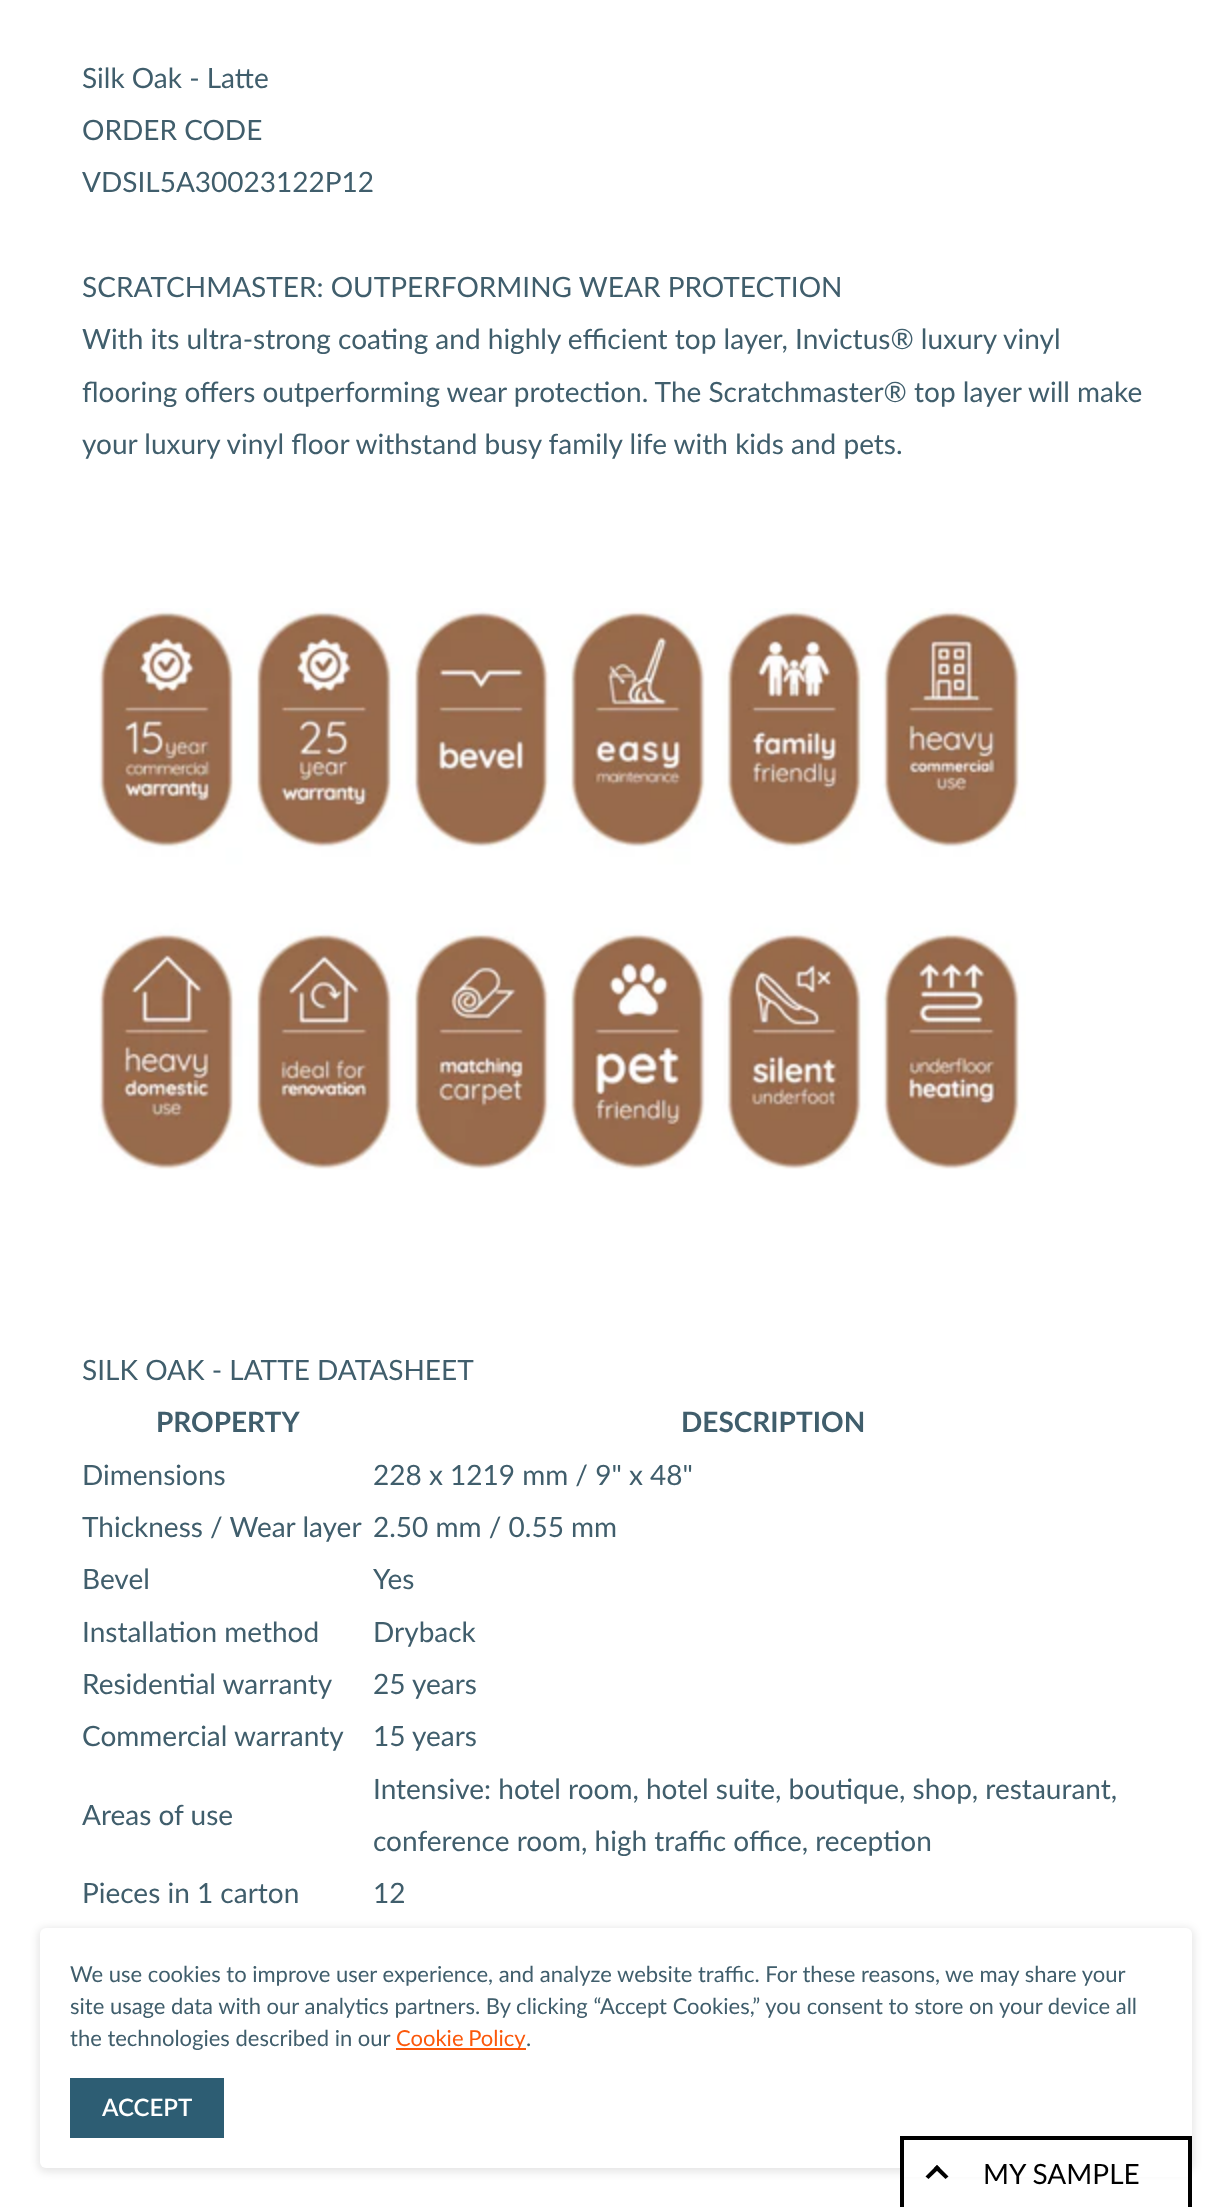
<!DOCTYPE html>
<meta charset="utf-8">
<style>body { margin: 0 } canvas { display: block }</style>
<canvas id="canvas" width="1231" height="2207"></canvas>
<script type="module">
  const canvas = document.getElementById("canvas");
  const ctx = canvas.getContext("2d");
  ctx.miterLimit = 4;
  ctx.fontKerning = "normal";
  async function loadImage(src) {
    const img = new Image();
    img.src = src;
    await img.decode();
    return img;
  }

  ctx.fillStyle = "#ffffff";
  ctx.fillRect(0, 0, 1231, 2207);
  ctx.font = "28px Lato";
  ctx.fillStyle = "#405e6c";
  ctx.fillText("Silk Oak - Latte", 82, 88);
  ctx.fillText("ORDER CODE", 82, 140);
  ctx.fillText("VDSIL5A30023122P12", 82, 192);
  ctx.fillText("SCRATCHMASTER: OUTPERFORMING WEAR PROTECTION", 82, 297);
  ctx.fillText("With its ultra-strong coating and highly efficient top layer, Invictus® luxury vinyl", 82, 349);
  ctx.fillText("flooring offers outperforming wear protection. The Scratchmaster® top layer will make", 82, 402);
  ctx.fillText("your luxury vinyl floor withstand busy family life with kids and pets.", 82, 454);
  ctx.drawImage(await loadImage("img1.png"), 98, 608, 928, 562);
  ctx.fillText("SILK OAK - LATTE DATASHEET", 82, 1380);
  ctx.font = "bold 28px Lato";
  ctx.fillText("PROPERTY", 156, 1432);
  ctx.fillText("DESCRIPTION", 681, 1432);
  ctx.font = "28px Lato";
  ctx.fillText("Dimensions", 82, 1485);
  ctx.fillText("228 x 1219 mm / 9\" x 48\"", 373, 1485);
  ctx.fillText("Thickness / Wear layer", 82, 1537);
  ctx.fillText("2.50 mm / 0.55 mm", 373, 1537);
  ctx.fillText("Bevel", 82, 1589);
  ctx.fillText("Yes", 373, 1589);
  ctx.fillText("Installation method", 82, 1642);
  ctx.fillText("Dryback", 373, 1642);
  ctx.fillText("Residential warranty", 82, 1694);
  ctx.fillText("25 years", 373, 1694);
  ctx.fillText("Commercial warranty", 82, 1746);
  ctx.fillText("15 years", 373, 1746);
  ctx.fillText("Areas of use", 82, 1825);
  ctx.fillText("Intensive: hotel room, hotel suite, boutique, shop, restaurant,", 373, 1799);
  ctx.fillText("conference room, high traffic office, reception", 373, 1851);
  ctx.fillText("Pieces in 1 carton", 82, 1903);
  ctx.fillText("12", 373, 1903);
  ctx.fillStyle = "rgba(0, 0, 0, 0.1)";
  ctx.filter = "blur(4px)";
  ctx.beginPath();
  ctx.roundRect(38, 1928, 1156, 244, 8);
  ctx.fill();
  ctx.filter = "none";
  ctx.fillStyle = "#ffffff";
  ctx.beginPath();
  ctx.roundRect(40, 1928, 1152, 240, 6);
  ctx.fill();
  ctx.font = "22px Lato";
  ctx.fillStyle = "#405e6c";
  ctx.fillText("We use cookies to improve user experience, and analyze website traffic. For these reasons, we may share your", 70, 1982);
  ctx.fillText("site usage data with our analytics partners. By clicking “Accept Cookies,” you consent to store on your device all", 70, 2014);
  ctx.fillText("the technologies described in our", 70, 2046);
  ctx.fillStyle = "#fb580b";
  ctx.fillRect(396, 2048, 130, 2);
  ctx.wordSpacing = "-1px";
  ctx.fillText("Cookie Policy", 396, 2046);
  ctx.wordSpacing = "0px";
  ctx.fillStyle = "#405e6c";
  ctx.fillText(".", 526, 2046);
  ctx.fillStyle = "#2d5d73";
  ctx.fillRect(70, 2078, 154, 60);
  ctx.font = "600 24px Lato";
  ctx.fillStyle = "#ffffff";
  ctx.fillText("ACCEPT", 102, 2116);
  ctx.fillRect(904, 2167, 284, 10);
  ctx.fillStyle = "#000000";
  ctx.fillRect(900, 2136, 292, 4);
  ctx.fillRect(1188, 2136, 4, 71);
  ctx.fillRect(900, 2136, 4, 71);
  ctx.beginPath();
  ctx.moveTo(937, 2165);
  ctx.lineTo(948.5, 2176.5);
  ctx.lineTo(945.5, 2179);
  ctx.lineTo(934, 2168);
  ctx.closePath();
  ctx.fill();
  ctx.beginPath();
  ctx.moveTo(937, 2165);
  ctx.lineTo(940, 2168);
  ctx.lineTo(928.5, 2179);
  ctx.lineTo(925.5, 2176.5);
  ctx.closePath();
  ctx.fill();
  ctx.font = "28px Lato";
  ctx.fillText("MY SAMPLE", 983, 2184);
</script>
